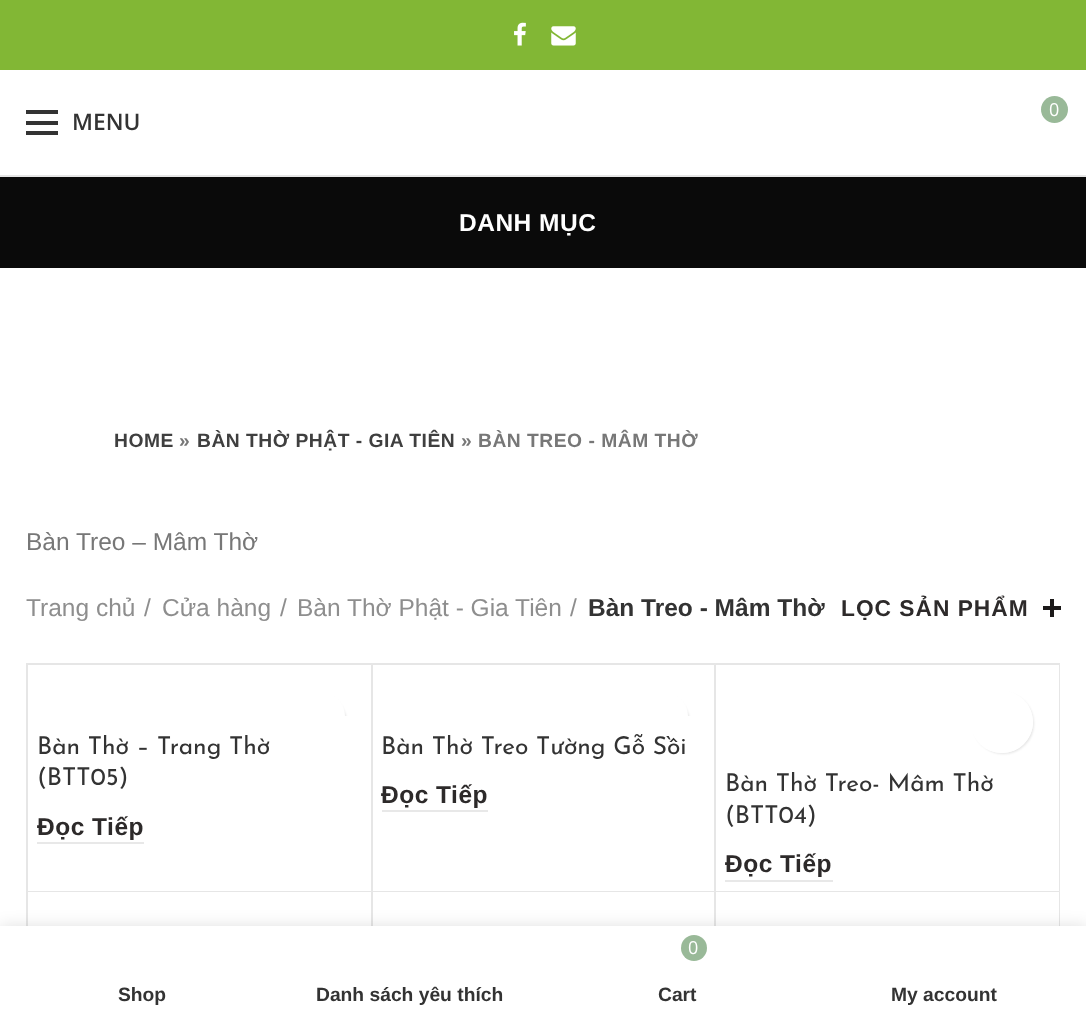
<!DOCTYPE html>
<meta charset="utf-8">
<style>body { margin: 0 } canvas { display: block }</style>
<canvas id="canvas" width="1086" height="1021"></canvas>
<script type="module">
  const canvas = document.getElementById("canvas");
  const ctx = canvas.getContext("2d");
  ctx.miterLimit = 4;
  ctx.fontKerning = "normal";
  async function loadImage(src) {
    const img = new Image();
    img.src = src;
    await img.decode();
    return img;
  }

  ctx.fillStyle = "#ffffff";
  ctx.fillRect(0, 0, 1086, 1021);
  ctx.fillStyle = "#82b735";
  ctx.fillRect(0, 0, 1086, 70);
  ctx.drawImage(await loadImage("img1.png"), 514, 22, 12, 24);
  ctx.drawImage(await loadImage("img2.png"), 551, 26, 25, 20);
  ctx.fillStyle = "#e6e6e6";
  ctx.fillRect(0, 175, 1086, 2);
  ctx.fillStyle = "#99b998";
  ctx.beginPath();
  ctx.arc(1054.5, 109.5, 13.5, 0, Math.PI * 2);
  ctx.fill();
  ctx.font = "18px Open Sans";
  ctx.fillStyle = "#ffffff";
  ctx.fillText("0", 1049, 116);
  ctx.fillStyle = "#333333";
  ctx.fillRect(26, 121, 32, 4);
  ctx.fillRect(26, 110, 32, 4);
  ctx.fillRect(26, 131, 32, 4);
  ctx.font = "600 22.75px Open Sans";
  ctx.fillText("MENU", 72, 130);
  ctx.fillStyle = "#0a0a0a";
  ctx.fillRect(0, 177, 1086, 91);
  ctx.letterSpacing = "0.5px";
  ctx.font = "bold 24.5px Liberation Sans";
  ctx.fillStyle = "#ffffff";
  ctx.fillText("DANH MỤC", 459, 231);
  ctx.font = "bold 19.25px Liberation Sans";
  ctx.fillStyle = "#3f3f3f";
  ctx.fillText("HOME", 114, 447);
  ctx.fillStyle = "#777777";
  ctx.fillText("»", 179, 447);
  ctx.fillStyle = "#3f3f3f";
  ctx.fillText("BÀN THỜ PHẬT - GIA TIÊN", 197, 447);
  ctx.fillStyle = "#777777";
  ctx.fillText("» BÀN TREO - MÂM THỜ", 461, 447);
  ctx.letterSpacing = "0px";
  ctx.font = "24.5px Liberation Sans";
  ctx.fillText("Bàn Treo – Mâm Thờ", 26, 550);
  ctx.fillStyle = "#8e8e8e";
  ctx.fillText("Trang chủ", 26, 616);
  ctx.fillText("/", 144, 616);
  ctx.fillText("Cửa hàng", 162, 616);
  ctx.fillText("/", 280, 616);
  ctx.fillText("Bàn Thờ Phật - Gia Tiên", 297, 616);
  ctx.fillText("/", 570, 616);
  ctx.font = "bold 24.5px Liberation Sans";
  ctx.fillStyle = "#333333";
  ctx.fillText("Bàn Treo - Mâm Thờ", 588, 616);
  ctx.letterSpacing = "1px";
  ctx.font = "bold 22.75px Liberation Sans";
  ctx.fillStyle = "#2d2a2a";
  ctx.fillText("LỌC SẢN PHẨM", 841, 616);
  ctx.fillStyle = "#1b1919";
  ctx.fillRect(1050, 599, 4, 18);
  ctx.fillRect(1043, 606, 18, 4);
  ctx.fillStyle = "#e6e6e6";
  ctx.fillRect(26, 663, 2, 263);
  ctx.beginPath();
  ctx.moveTo(28, 663);
  ctx.lineTo(373, 663);
  ctx.lineTo(371, 665);
  ctx.lineTo(28, 665);
  ctx.closePath();
  ctx.fill();
  ctx.fillStyle = "rgba(129, 129, 129, 0.2)";
  ctx.beginPath();
  ctx.moveTo(373, 663);
  ctx.lineTo(373, 892);
  ctx.lineTo(371, 891);
  ctx.lineTo(371, 665);
  ctx.closePath();
  ctx.fill();
  ctx.beginPath();
  ctx.moveTo(373, 892);
  ctx.lineTo(28, 892);
  ctx.lineTo(28, 891);
  ctx.lineTo(371, 891);
  ctx.closePath();
  ctx.fill();
  ctx.letterSpacing = "0px";
  ctx.font = "24.5px Josefin Sans";
  ctx.fillStyle = "#333333";
  ctx.fillText("Bàn Thờ – Trang Thờ", 37, 754);
  ctx.fillText("(BTT05)", 37, 785);
  ctx.save();
  ctx.beginPath();
  ctx.rect(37, 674, 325, 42);
  ctx.clip();
  ctx.fillStyle = "rgba(0, 0, 0, 0.1)";
  ctx.filter = "blur(1px)";
  ctx.beginPath();
  ctx.roundRect(285, 693, 62, 61, 30.5);
  ctx.fill();
  ctx.filter = "none";
  ctx.restore();
  ctx.fillStyle = "#ffffff";
  ctx.beginPath();
  ctx.roundRect(284, 691, 61, 25, [30.5, 30.5, 0, 0]);
  ctx.fill();
  ctx.fillStyle = "#e8e8e8";
  ctx.fillRect(37, 842, 107, 2);
  ctx.letterSpacing = "0.5px";
  ctx.font = "bold 24.5px Liberation Sans";
  ctx.fillStyle = "#2d2a2a";
  ctx.fillText("Đọc Tiếp", 37, 835);
  ctx.fillStyle = "#e6e6e6";
  ctx.beginPath();
  ctx.moveTo(373, 663);
  ctx.lineTo(716, 663);
  ctx.lineTo(714, 665);
  ctx.lineTo(373, 665);
  ctx.closePath();
  ctx.fill();
  ctx.fillStyle = "rgba(129, 129, 129, 0.2)";
  ctx.beginPath();
  ctx.moveTo(716, 663);
  ctx.lineTo(716, 892);
  ctx.lineTo(714, 891);
  ctx.lineTo(714, 665);
  ctx.closePath();
  ctx.fill();
  ctx.beginPath();
  ctx.moveTo(716, 892);
  ctx.lineTo(373, 892);
  ctx.lineTo(373, 891);
  ctx.lineTo(714, 891);
  ctx.closePath();
  ctx.fill();
  ctx.save();
  ctx.beginPath();
  ctx.rect(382, 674, 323, 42);
  ctx.clip();
  ctx.fillStyle = "rgba(0, 0, 0, 0.1)";
  ctx.filter = "blur(1px)";
  ctx.beginPath();
  ctx.roundRect(628, 693, 62, 61, 30.5);
  ctx.fill();
  ctx.filter = "none";
  ctx.restore();
  ctx.fillStyle = "#ffffff";
  ctx.beginPath();
  ctx.roundRect(627, 691, 61, 25, [30.5, 30.5, 0, 0]);
  ctx.fill();
  ctx.letterSpacing = "0px";
  ctx.font = "24.5px Josefin Sans";
  ctx.fillStyle = "#333333";
  ctx.fillText("Bàn Thờ Treo Tường Gỗ Sồi", 381, 754);
  ctx.fillStyle = "#e8e8e8";
  ctx.fillRect(382, 810, 106, 2);
  ctx.letterSpacing = "0.5px";
  ctx.font = "bold 24.5px Liberation Sans";
  ctx.fillStyle = "#2d2a2a";
  ctx.fillText("Đọc Tiếp", 381, 803);
  ctx.fillStyle = "#e6e6e6";
  ctx.beginPath();
  ctx.moveTo(716, 663);
  ctx.lineTo(1060, 663);
  ctx.lineTo(1059, 665);
  ctx.lineTo(716, 665);
  ctx.closePath();
  ctx.fill();
  ctx.fillStyle = "rgba(129, 129, 129, 0.2)";
  ctx.beginPath();
  ctx.moveTo(1060, 663);
  ctx.lineTo(1060, 892);
  ctx.lineTo(1059, 891);
  ctx.lineTo(1059, 665);
  ctx.closePath();
  ctx.fill();
  ctx.beginPath();
  ctx.moveTo(1060, 892);
  ctx.lineTo(716, 892);
  ctx.lineTo(716, 891);
  ctx.lineTo(1059, 891);
  ctx.closePath();
  ctx.fill();
  ctx.save();
  ctx.beginPath();
  ctx.moveTo(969, 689);
  ctx.lineTo(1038, 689);
  ctx.lineTo(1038, 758);
  ctx.lineTo(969, 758);
  ctx.closePath();
  ctx.moveTo(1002, 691);
  ctx.bezierCurveTo(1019, 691, 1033, 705, 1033, 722);
  ctx.bezierCurveTo(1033, 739, 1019, 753, 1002, 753);
  ctx.bezierCurveTo(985, 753, 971, 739, 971, 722);
  ctx.bezierCurveTo(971, 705, 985, 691, 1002, 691);
  ctx.closePath();
  ctx.clip("evenodd");
  ctx.fillStyle = "rgba(0, 0, 0, 0.1)";
  ctx.filter = "blur(1px)";
  ctx.beginPath();
  ctx.roundRect(973, 693, 61, 61, 30.5);
  ctx.fill();
  ctx.filter = "none";
  ctx.restore();
  ctx.fillStyle = "#ffffff";
  ctx.beginPath();
  ctx.arc(1002, 722, 31, 0, Math.PI * 2);
  ctx.fill();
  ctx.letterSpacing = "0px";
  ctx.font = "24.5px Josefin Sans";
  ctx.fillStyle = "#333333";
  ctx.fillText("Bàn Thờ Treo- Mâm Thờ", 725, 791);
  ctx.fillText("(BTT04)", 725, 823);
  ctx.fillStyle = "#e8e8e8";
  ctx.fillRect(725, 880, 108, 2);
  ctx.letterSpacing = "0.5px";
  ctx.font = "bold 24.5px Liberation Sans";
  ctx.fillStyle = "#2d2a2a";
  ctx.fillText("Đọc Tiếp", 725, 872);
  ctx.fillStyle = "#e6e6e6";
  ctx.beginPath();
  ctx.moveTo(373, 892);
  ctx.lineTo(373, 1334);
  ctx.lineTo(371, 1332);
  ctx.lineTo(371, 892);
  ctx.closePath();
  ctx.fill();
  ctx.beginPath();
  ctx.moveTo(716, 892);
  ctx.lineTo(716, 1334);
  ctx.lineTo(714, 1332);
  ctx.lineTo(714, 892);
  ctx.closePath();
  ctx.fill();
  ctx.beginPath();
  ctx.moveTo(1060, 892);
  ctx.lineTo(1060, 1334);
  ctx.lineTo(1059, 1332);
  ctx.lineTo(1059, 892);
  ctx.closePath();
  ctx.fill();
  ctx.fillStyle = "rgba(0, 0, 0, 0.12)";
  ctx.filter = "blur(8px)";
  ctx.beginPath();
  ctx.rect(0, 926, 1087, 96);
  ctx.fill();
  ctx.filter = "none";
  ctx.fillStyle = "#ffffff";
  ctx.fillRect(0, 926, 1086, 95);
  ctx.letterSpacing = "0px";
  ctx.font = "bold 19.25px Liberation Sans";
  ctx.fillStyle = "#333333";
  ctx.fillText("Shop", 118, 1001);
  ctx.fillText("Danh sách yêu thích", 316, 1001);
  ctx.fillStyle = "#99b998";
  ctx.beginPath();
  ctx.arc(694, 948, 13, 0, Math.PI * 2);
  ctx.fill();
  ctx.font = "18px Open Sans";
  ctx.fillStyle = "#ffffff";
  ctx.fillText("0", 688, 954);
  ctx.font = "bold 19.25px Liberation Sans";
  ctx.fillStyle = "#333333";
  ctx.fillText("Cart", 658, 1001);
  ctx.fillText("My account", 891, 1001);
</script>
